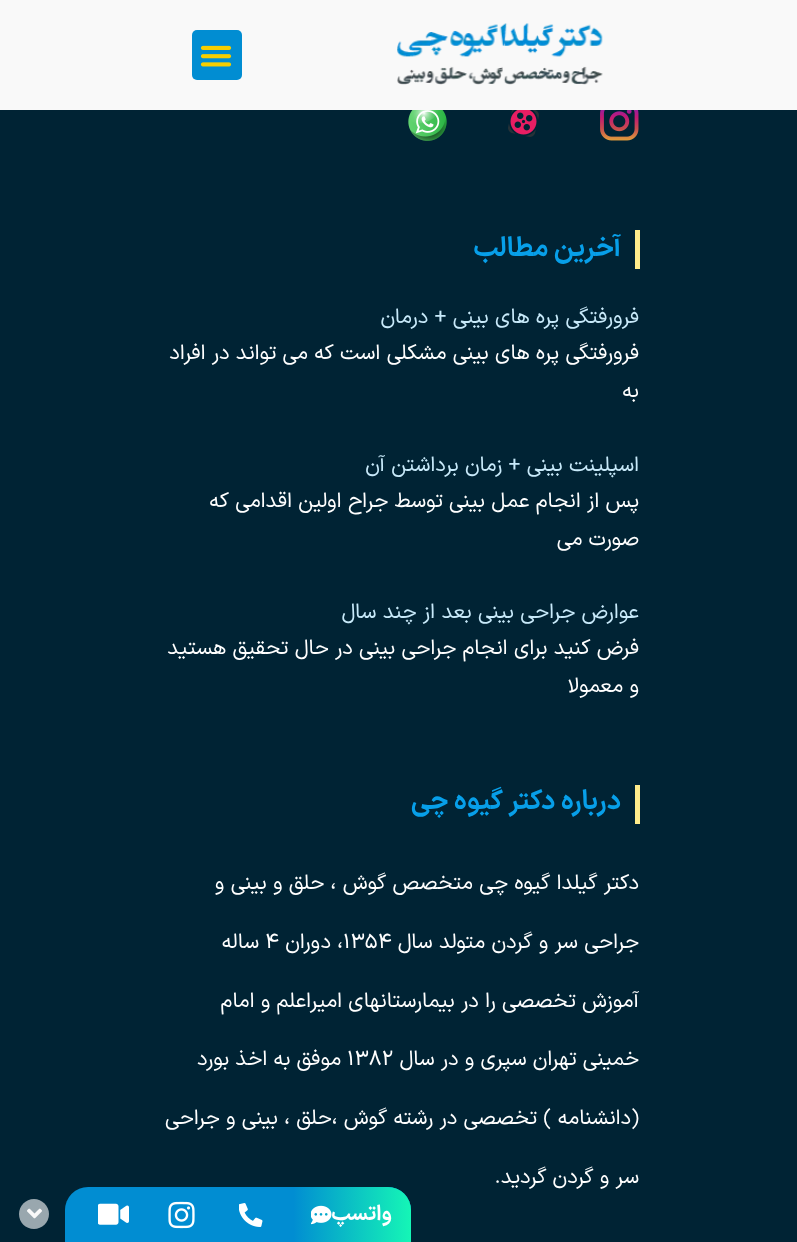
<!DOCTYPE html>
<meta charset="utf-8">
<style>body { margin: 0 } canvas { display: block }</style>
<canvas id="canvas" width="797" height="1242"></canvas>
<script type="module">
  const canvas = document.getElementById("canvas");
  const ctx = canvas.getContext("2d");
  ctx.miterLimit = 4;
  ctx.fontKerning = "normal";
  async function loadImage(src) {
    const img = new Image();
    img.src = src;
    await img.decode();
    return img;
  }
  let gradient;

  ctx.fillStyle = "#002334";
  ctx.fillRect(0, 0, 797, 1242);
  ctx.fillStyle = "#f9f9f9";
  ctx.fillRect(0, 0, 797, 110);
  ctx.drawImage(await loadImage("img1.png"), 397, 23, 206, 62);
  ctx.fillStyle = "#018dd2";
  ctx.beginPath();
  ctx.roundRect(192, 30, 50, 50, 5);
  ctx.fill();
  ctx.drawImage(await loadImage("img2.png"), 200, 45, 32, 22);
  ctx.drawImage(await loadImage("img3.png"), 600, 110, 39, 31);
  ctx.drawImage(await loadImage("img4.png"), 508, 110, 31, 27);
  ctx.drawImage(await loadImage("img5.png"), 408, 110, 39, 31);
  ctx.fillStyle = "#ffec8b";
  ctx.fillRect(635, 230, 5, 39);
  ctx.direction = "rtl";
  ctx.font = "bold 27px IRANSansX";
  ctx.fillStyle = "#079fe9";
  ctx.fillText("آخرین مطالب", 621, 256);
  ctx.font = "21px IRANSansX";
  ctx.fillStyle = "#c8eafa";
  ctx.fillText("فرورفتگی پره های بینی + درمان", 639, 323);
  ctx.fillStyle = "#ffffff";
  ctx.fillText("فرورفتگی پره های بینی مشکلی است که می تواند در افراد", 639, 359);
  ctx.fillText("به", 639, 397);
  ctx.fillStyle = "#c8eafa";
  ctx.fillText("اسپلینت بینی + زمان برداشتن آن", 639, 471);
  ctx.fillStyle = "#ffffff";
  ctx.fillText("پس از انجام عمل بینی توسط جراح اولین اقدامی که", 639, 507);
  ctx.fillText("صورت می", 639, 545);
  ctx.fillStyle = "#c8eafa";
  ctx.fillText("عوارض جراحی بینی بعد از چند سال", 639, 618);
  ctx.fillStyle = "#ffffff";
  ctx.fillText("فرض کنید برای انجام جراحی بینی در حال تحقیق هستید", 639, 654);
  ctx.fillText("و معمولا", 639, 692);
  ctx.fillStyle = "#ffec8b";
  ctx.fillRect(635, 785, 5, 39);
  ctx.font = "bold 27px IRANSansX";
  ctx.fillStyle = "#079fe9";
  ctx.fillText("درباره دکتر گیوه چی", 621, 809);
  ctx.font = "21px IRANSansX";
  ctx.fillStyle = "#ffffff";
  ctx.fillText("دكتر گيلدا گيوه چی متخصص گوش ، حلق و بینی و", 639, 889);
  ctx.fillText("جراحی سر و گردن متولد سال", 639, 948);
  ctx.direction = "ltr";
  ctx.fillText("۱۳۵۴", 343, 948);
  ctx.direction = "rtl";
  ctx.fillText("، دوران", 343, 948);
  ctx.direction = "ltr";
  ctx.fillText("۴", 265, 948);
  ctx.direction = "rtl";
  ctx.fillText("ساله", 259, 948);
  ctx.fillText("آموزش تخصصی را در بیمارستانهای امیراعلم و امام", 639, 1007);
  ctx.fillText("خمینی تهران سپری و در سال", 639, 1065);
  ctx.direction = "ltr";
  ctx.fillText("۱۳۸۲", 347, 1065);
  ctx.direction = "rtl";
  ctx.fillText("موفق به اخذ بورد", 341, 1065);
  ctx.fillText("(دانشنامه ) تخصصی در رشته گوش ،حلق ، بینی و جراحی", 639, 1124);
  ctx.fillText("سر و گردن گردید.", 639, 1183);
  ctx.fillStyle = "#018dd2";
  ctx.beginPath();
  ctx.roundRect(65, 1187, 345, 55, [23, 23, 0, 0]);
  ctx.fill();
  ctx.beginPath();
  ctx.roundRect(293, 1187, 118, 55, [0, 23, 0, 0]);
  ctx.fill();
  gradient = ctx.createLinearGradient(411, 1214, 293, 1214);
  gradient.addColorStop(0, "#15f6b6");
  gradient.addColorStop(1, "rgba(21, 246, 182, 0)");
  ctx.fillStyle = gradient;
  ctx.beginPath();
  ctx.roundRect(293, 1187, 118, 55, [0, 23, 0, 0]);
  ctx.fill();
  ctx.font = "bold 21px IRANSansX";
  ctx.fillStyle = "#ffffff";
  ctx.fillText("واتسپ", 392, 1220);
  ctx.drawImage(await loadImage("img6.png"), 311, 1205, 21, 20);
  ctx.drawImage(await loadImage("img7.png"), 239, 1203, 24, 24);
  ctx.drawImage(await loadImage("img8.png"), 168, 1201, 27, 28);
  ctx.drawImage(await loadImage("img9.png"), 98, 1203, 31, 22);
  ctx.fillStyle = "#99a7ae";
  ctx.beginPath();
  ctx.moveTo(19, 1214);
  ctx.bezierCurveTo(19, 1206, 25.5, 1199, 34, 1199);
  ctx.bezierCurveTo(42, 1199, 49, 1206, 49, 1214);
  ctx.bezierCurveTo(49, 1222.5, 42, 1229, 34, 1229);
  ctx.bezierCurveTo(25.5, 1229, 19, 1222.5, 19, 1214);
  ctx.closePath();
  ctx.fill();
  ctx.drawImage(await loadImage("img10.png"), 27, 1208, 15, 11);
</script>
